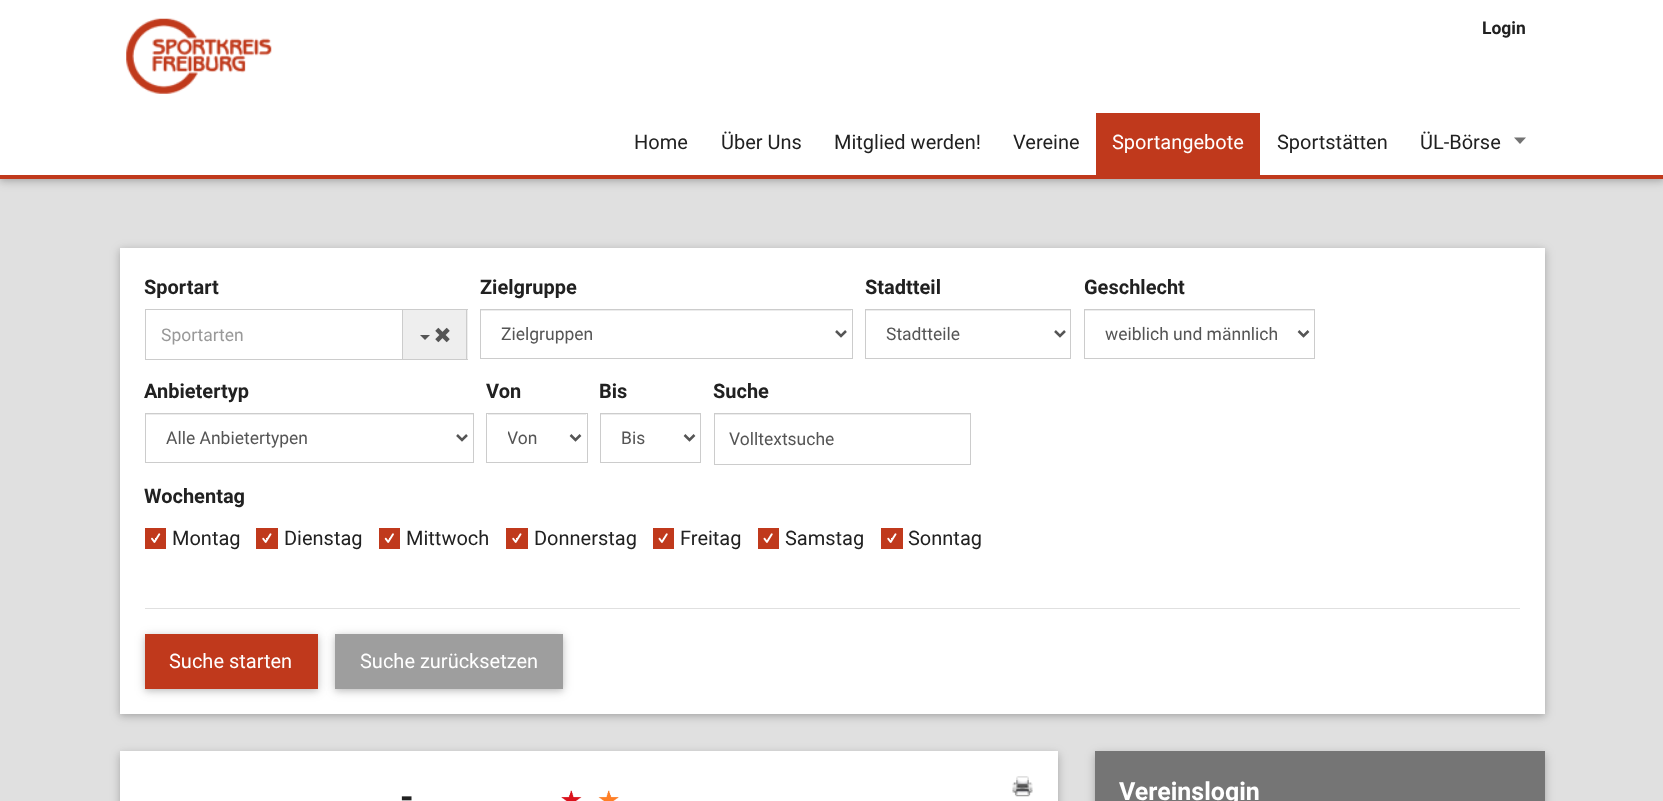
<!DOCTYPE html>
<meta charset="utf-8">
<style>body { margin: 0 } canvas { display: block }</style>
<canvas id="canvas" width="1663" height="801"></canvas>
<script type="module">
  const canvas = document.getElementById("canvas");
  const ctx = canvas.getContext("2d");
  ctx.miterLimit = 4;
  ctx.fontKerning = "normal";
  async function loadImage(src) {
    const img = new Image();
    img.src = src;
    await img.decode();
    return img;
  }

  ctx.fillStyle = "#e0e0e0";
  ctx.fillRect(0, 0, 1663, 801);
  ctx.fillStyle = "rgba(0, 0, 0, 0.12)";
  ctx.filter = "blur(6px)";
  ctx.beginPath();
  ctx.rect(0, 3, 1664, 178);
  ctx.fill();
  ctx.filter = "none";
  ctx.fillStyle = "rgba(0, 0, 0, 0.16)";
  ctx.filter = "blur(3px)";
  ctx.beginPath();
  ctx.rect(0, 3, 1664, 178);
  ctx.fill();
  ctx.filter = "none";
  ctx.fillStyle = "#ffffff";
  ctx.fillRect(0, 0, 1663, 175);
  ctx.fillStyle = "#c0391c";
  ctx.fillRect(0, 175, 1663, 4);
  ctx.drawImage(await loadImage("img1.png"), 126, 18, 146, 76);
  ctx.font = "bold 17.5px Roboto";
  ctx.fillStyle = "#212121";
  ctx.fillText("Login", 1482, 34);
  ctx.font = "20px Roboto";
  ctx.fillText("Home", 634, 149);
  ctx.fillText("Über Uns", 721, 149);
  ctx.fillText("Mitglied werden!", 834, 149);
  ctx.fillText("Vereine", 1013, 149);
  ctx.fillStyle = "#c0391c";
  ctx.fillRect(1096, 113, 164, 62);
  ctx.fillStyle = "#ffffff";
  ctx.fillText("Sportangebote", 1112, 149);
  ctx.fillStyle = "#212121";
  ctx.fillText("Sportstätten", 1277, 149);
  ctx.fillText("ÜL-Börse", 1420, 149);
  ctx.fillStyle = "#737373";
  ctx.beginPath();
  ctx.moveTo(1514, 137.5);
  ctx.lineTo(1526, 137.5);
  ctx.lineTo(1520, 144);
  ctx.closePath();
  ctx.fill();
  ctx.fillStyle = "rgba(0, 0, 0, 0.12)";
  ctx.filter = "blur(6px)";
  ctx.beginPath();
  ctx.rect(120, 250, 1425, 466);
  ctx.fill();
  ctx.filter = "none";
  ctx.fillStyle = "rgba(0, 0, 0, 0.16)";
  ctx.filter = "blur(3px)";
  ctx.beginPath();
  ctx.rect(120, 250, 1425, 466);
  ctx.fill();
  ctx.filter = "none";
  ctx.fillStyle = "#ffffff";
  ctx.fillRect(120, 248, 1425, 466);
  ctx.font = "bold 20px Roboto";
  ctx.fillStyle = "#212121";
  ctx.fillText("Sportart", 144, 294);
  ctx.strokeStyle = "#cccccc";
  ctx.strokeRect(145.5, 309.5, 257, 50);
  ctx.font = "17.5px Roboto";
  ctx.fillStyle = "#999999";
  ctx.fillText("Sportarten", 161, 341);
  ctx.fillStyle = "#eeeeee";
  ctx.fillRect(403, 310, 65, 49);
  ctx.fillStyle = "#cccccc";
  ctx.fillRect(403, 309, 65, 1);
  ctx.fillRect(466, 309, 1, 51);
  ctx.fillRect(403, 359, 65, 1);
  ctx.fillStyle = "#555555";
  ctx.beginPath();
  ctx.moveTo(420, 335);
  ctx.lineTo(430, 335);
  ctx.lineTo(425, 340);
  ctx.closePath();
  ctx.fill();
  ctx.drawImage(await loadImage("img2.png"), 435, 327, 15, 16);
  ctx.font = "bold 20px Roboto";
  ctx.fillStyle = "#212121";
  ctx.fillText("Zielgruppe", 480, 294);
  ctx.fillStyle = "#ececec";
  ctx.fillRect(481, 310, 370, 1);
  ctx.strokeRect(480.5, 309.5, 372, 49);
  ctx.beginPath();
  ctx.moveTo(836, 331);
  ctx.lineTo(841, 336);
  ctx.lineTo(846, 331);
  ctx.strokeStyle = "#555555";
  ctx.lineWidth = 2.5;
  ctx.stroke();
  ctx.font = "17.5px Roboto";
  ctx.fillStyle = "#555555";
  ctx.fillText("Zielgruppen", 501, 340);
  ctx.font = "bold 20px Roboto";
  ctx.fillStyle = "#212121";
  ctx.fillText("Stadtteil", 865, 294);
  ctx.fillStyle = "#ececec";
  ctx.fillRect(866, 310, 204, 1);
  ctx.strokeStyle = "#cccccc";
  ctx.lineWidth = 1;
  ctx.strokeRect(865.5, 309.5, 205, 49);
  ctx.beginPath();
  ctx.moveTo(1055, 331);
  ctx.lineTo(1060, 336);
  ctx.lineTo(1065, 331);
  ctx.strokeStyle = "#555555";
  ctx.lineWidth = 2.5;
  ctx.stroke();
  ctx.font = "17.5px Roboto";
  ctx.fillStyle = "#555555";
  ctx.fillText("Stadtteile", 886, 340);
  ctx.font = "bold 20px Roboto";
  ctx.fillStyle = "#212121";
  ctx.fillText("Geschlecht", 1084, 294);
  ctx.fillStyle = "#ececec";
  ctx.fillRect(1085, 310, 229, 1);
  ctx.strokeStyle = "#cccccc";
  ctx.lineWidth = 1;
  ctx.strokeRect(1084.5, 309.5, 230, 49);
  ctx.beginPath();
  ctx.moveTo(1298.5, 331);
  ctx.lineTo(1303.5, 336);
  ctx.lineTo(1308.5, 331);
  ctx.strokeStyle = "#555555";
  ctx.lineWidth = 2.5;
  ctx.stroke();
  ctx.font = "17.5px Roboto";
  ctx.fillStyle = "#555555";
  ctx.fillText("weiblich und männlich", 1105, 340);
  ctx.font = "bold 20px Roboto";
  ctx.fillStyle = "#212121";
  ctx.fillText("Anbietertyp", 144, 398);
  ctx.fillStyle = "#ececec";
  ctx.fillRect(146, 414, 327, 1);
  ctx.strokeStyle = "#cccccc";
  ctx.lineWidth = 1;
  ctx.strokeRect(145.5, 413.5, 328, 49);
  ctx.beginPath();
  ctx.moveTo(457, 435);
  ctx.lineTo(462, 440);
  ctx.lineTo(467, 435);
  ctx.strokeStyle = "#555555";
  ctx.lineWidth = 2.5;
  ctx.stroke();
  ctx.font = "17.5px Roboto";
  ctx.fillStyle = "#555555";
  ctx.fillText("Alle Anbietertypen", 166, 444);
  ctx.font = "bold 20px Roboto";
  ctx.fillStyle = "#212121";
  ctx.fillText("Von", 486, 398);
  ctx.fillStyle = "#ececec";
  ctx.fillRect(488, 414, 98, 1);
  ctx.strokeStyle = "#cccccc";
  ctx.lineWidth = 1;
  ctx.strokeRect(486.5, 413.5, 101, 49);
  ctx.beginPath();
  ctx.moveTo(570.5, 435);
  ctx.lineTo(575.5, 440);
  ctx.lineTo(580.5, 435);
  ctx.strokeStyle = "#555555";
  ctx.lineWidth = 2.5;
  ctx.stroke();
  ctx.save();
  ctx.beginPath();
  ctx.rect(508, 426, 43, 23);
  ctx.clip();
  ctx.font = "17.5px Roboto";
  ctx.fillStyle = "#555555";
  ctx.fillText("Von", 507, 444);
  ctx.restore();
  ctx.fillStyle = "#212121";
  ctx.fillText("Bis", 599, 398);
  ctx.fillStyle = "#ececec";
  ctx.fillRect(601, 414, 99, 1);
  ctx.strokeStyle = "#cccccc";
  ctx.lineWidth = 1;
  ctx.strokeRect(600.5, 413.5, 100, 49);
  ctx.beginPath();
  ctx.moveTo(684.5, 435);
  ctx.lineTo(689.5, 440);
  ctx.lineTo(694.5, 435);
  ctx.strokeStyle = "#555555";
  ctx.lineWidth = 2.5;
  ctx.stroke();
  ctx.font = "17.5px Roboto";
  ctx.fillStyle = "#555555";
  ctx.fillText("Bis", 621, 444);
  ctx.font = "bold 20px Roboto";
  ctx.fillStyle = "#212121";
  ctx.fillText("Suche", 713, 398);
  ctx.fillStyle = "#ececec";
  ctx.fillRect(715, 414, 255, 1);
  ctx.strokeStyle = "#cccccc";
  ctx.lineWidth = 1;
  ctx.strokeRect(714.5, 413.5, 256, 51);
  ctx.font = "17.5px Roboto";
  ctx.fillStyle = "#555555";
  ctx.fillText("Volltextsuche", 729, 445);
  ctx.font = "bold 20px Roboto";
  ctx.fillStyle = "#212121";
  ctx.fillText("Wochentag", 144, 503);
  ctx.strokeStyle = "#c0391c";
  ctx.lineWidth = 10;
  ctx.strokeRect(150, 533, 11, 11);
  ctx.font = "20px Roboto";
  ctx.fillText("Montag", 172, 545);
  ctx.drawImage(await loadImage("img3.png"), 151, 533, 10, 10);
  ctx.strokeRect(261, 533, 12, 11);
  ctx.fillText("Dienstag", 284, 545);
  ctx.drawImage(await loadImage("img4.png"), 262, 533, 10, 10);
  ctx.strokeRect(384, 533, 11, 11);
  ctx.fillText("Mittwoch", 406, 545);
  ctx.drawImage(await loadImage("img5.png"), 384, 533, 10, 10);
  ctx.strokeRect(511, 533, 12, 11);
  ctx.fillText("Donnerstag", 534, 545);
  ctx.drawImage(await loadImage("img4.png"), 512, 533, 10, 10);
  ctx.strokeRect(658, 533, 11, 11);
  ctx.fillText("Freitag", 680, 545);
  ctx.drawImage(await loadImage("img6.png"), 658, 533, 10, 10);
  ctx.strokeRect(763, 533, 11, 11);
  ctx.fillText("Samstag", 785, 545);
  ctx.drawImage(await loadImage("img6.png"), 763, 533, 10, 10);
  ctx.strokeRect(886, 533, 12, 11);
  ctx.fillText("Sonntag", 908, 545);
  ctx.drawImage(await loadImage("img4.png"), 887, 533, 10, 10);
  ctx.fillStyle = "#e0e0e0";
  ctx.fillRect(145, 608, 1375, 1);
  ctx.fillStyle = "rgba(0, 0, 0, 0.12)";
  ctx.filter = "blur(6px)";
  ctx.beginPath();
  ctx.rect(145, 636, 173, 55);
  ctx.fill();
  ctx.filter = "none";
  ctx.fillStyle = "rgba(0, 0, 0, 0.16)";
  ctx.filter = "blur(3px)";
  ctx.beginPath();
  ctx.rect(145, 636, 173, 55);
  ctx.fill();
  ctx.filter = "none";
  ctx.fillStyle = "#c0391c";
  ctx.fillRect(145, 634, 173, 55);
  ctx.fillStyle = "#ffffff";
  ctx.fillText("Suche starten", 169, 668);
  ctx.fillStyle = "rgba(0, 0, 0, 0.12)";
  ctx.filter = "blur(6px)";
  ctx.beginPath();
  ctx.rect(335, 636, 228, 55);
  ctx.fill();
  ctx.filter = "none";
  ctx.fillStyle = "rgba(0, 0, 0, 0.16)";
  ctx.filter = "blur(3px)";
  ctx.beginPath();
  ctx.rect(335, 636, 228, 55);
  ctx.fill();
  ctx.filter = "none";
  ctx.fillStyle = "#9e9e9e";
  ctx.fillRect(335, 634, 228, 55);
  ctx.fillStyle = "#ffffff";
  ctx.fillText("Suche zurücksetzen", 360, 668);
  ctx.fillStyle = "rgba(0, 0, 0, 0.12)";
  ctx.filter = "blur(6px)";
  ctx.beginPath();
  ctx.rect(120, 754, 938, 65);
  ctx.fill();
  ctx.filter = "none";
  ctx.fillStyle = "rgba(0, 0, 0, 0.16)";
  ctx.filter = "blur(3px)";
  ctx.beginPath();
  ctx.rect(120, 754, 938, 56);
  ctx.fill();
  ctx.filter = "none";
  ctx.fillStyle = "#ffffff";
  ctx.fillRect(120, 751, 938, 50);
  ctx.drawImage(await loadImage("img7.png"), 1012, 776, 21, 21);
  ctx.font = "bold 35px Roboto";
  ctx.fillStyle = "#212121";
  ctx.fillText("-", 400, 809);
  ctx.drawImage(await loadImage("img8.png"), 561, 790, 21, 11);
  ctx.drawImage(await loadImage("img9.png"), 598, 790, 21, 11);
  ctx.fillStyle = "rgba(0, 0, 0, 0.12)";
  ctx.filter = "blur(6px)";
  ctx.beginPath();
  ctx.rect(1095, 754, 450, 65);
  ctx.fill();
  ctx.filter = "none";
  ctx.fillStyle = "rgba(0, 0, 0, 0.16)";
  ctx.filter = "blur(3px)";
  ctx.beginPath();
  ctx.rect(1095, 754, 450, 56);
  ctx.fill();
  ctx.filter = "none";
  ctx.fillStyle = "#757575";
  ctx.fillRect(1095, 751, 450, 50);
  ctx.font = "bold 25px Roboto";
  ctx.fillStyle = "#ffffff";
  ctx.fillText("Vereinslogin", 1119, 800);
</script>
